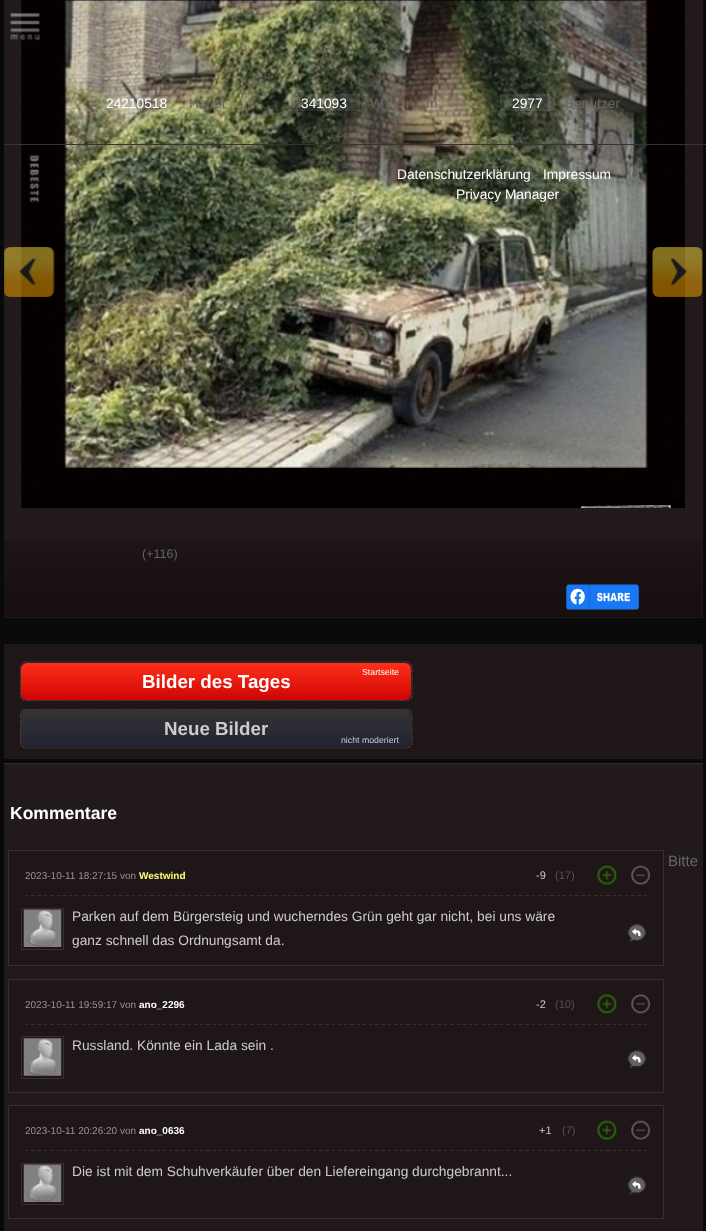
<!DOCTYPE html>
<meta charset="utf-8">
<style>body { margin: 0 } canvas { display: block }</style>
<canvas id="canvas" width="706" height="1231"></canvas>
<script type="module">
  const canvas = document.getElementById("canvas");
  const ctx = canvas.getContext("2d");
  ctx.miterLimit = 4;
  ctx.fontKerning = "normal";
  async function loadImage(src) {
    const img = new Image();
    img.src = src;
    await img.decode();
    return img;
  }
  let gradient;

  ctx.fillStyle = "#090909";
  ctx.fillRect(0, 0, 706, 1231);
  ctx.fillStyle = "#221a1a";
  ctx.fillRect(4, 0, 699, 618);
  ctx.drawImage(await loadImage("img3.png"), 21, 0, 664, 508);
  ctx.drawImage(await loadImage("img1.png"), 10, 13, 30, 28);
  ctx.fillStyle = "rgba(255, 255, 255, 0.1)";
  ctx.fillRect(93, 94, 86, 17);
  ctx.font = "13.75px Liberation Sans";
  ctx.fillStyle = "#ffffff";
  ctx.fillText("24210518", 106, 108);
  ctx.fillStyle = "#666666";
  ctx.fillText("Haupt", 189, 108);
  ctx.fillStyle = "rgba(255, 255, 255, 0.1)";
  ctx.fillRect(289, 94, 71, 17);
  ctx.fillStyle = "#ffffff";
  ctx.fillText("341093", 301, 108);
  ctx.fillStyle = "#666666";
  ctx.fillText("W", 370, 108);
  ctx.fillText("r", 406, 108);
  ctx.fillText("m", 426, 108);
  ctx.fillStyle = "rgba(255, 255, 255, 0.1)";
  ctx.fillRect(500, 94, 55, 17);
  ctx.fillStyle = "#ffffff";
  ctx.fillText("2977", 512, 108);
  ctx.fillStyle = "#666666";
  ctx.fillText("Benutzer", 565, 108);
  ctx.fillStyle = "#3e3030";
  ctx.fillRect(4, 144, 702, 1);
  ctx.fillStyle = "#ffffff";
  ctx.fillText("Datenschutzerklärung", 397, 179);
  ctx.fillStyle = "#666666";
  ctx.fillText("-", 534, 179);
  ctx.fillStyle = "#ffffff";
  ctx.fillText("Impressum", 543, 179);
  ctx.fillText("Privacy Manager", 456, 199);
  ctx.drawImage(await loadImage("img2.png"), 4, 540, 699, 77);
  ctx.drawImage(await loadImage("img4.png"), 4, 247, 51, 50);
  ctx.drawImage(await loadImage("img5.png"), 652, 247, 51, 50);
  ctx.font = "12.5px Liberation Sans";
  ctx.fillStyle = "#666666";
  ctx.fillText("(+116)", 142, 558);
  ctx.drawImage(await loadImage("img6.png"), 566, 584, 73, 26);
  ctx.fillStyle = "#1f1617";
  ctx.fillRect(4, 644, 699, 115);
  ctx.beginPath();
  ctx.moveTo(26, 662);
  ctx.lineTo(406, 662);
  ctx.bezierCurveTo(409.5, 662, 412, 664.5, 412, 667.5);
  ctx.lineTo(412, 695);
  ctx.bezierCurveTo(412, 698, 409.5, 700.5, 406, 700.5);
  ctx.lineTo(26, 700.5);
  ctx.bezierCurveTo(23, 700.5, 20.5, 698, 20.5, 695);
  ctx.lineTo(20.5, 667.5);
  ctx.bezierCurveTo(20.5, 664.5, 23, 662, 26, 662);
  ctx.closePath();
  ctx.strokeStyle = "#555555";
  ctx.lineWidth = 1.2;
  ctx.setLineDash([1.25, 1.25]);
  ctx.stroke();
  gradient = ctx.createLinearGradient(216, 663, 216, 700);
  gradient.addColorStop(0, "#ff3019");
  gradient.addColorStop(1, "#cf0404");
  ctx.fillStyle = gradient;
  ctx.beginPath();
  ctx.roundRect(21, 663, 390, 37, 6);
  ctx.fill();
  ctx.font = "8.75px Liberation Sans";
  ctx.fillStyle = "#ffffff";
  ctx.fillText("Startseite", 362, 675);
  ctx.font = "bold 18.75px Liberation Sans";
  ctx.fillText("Bilder des Tages", 142, 688);
  ctx.beginPath();
  ctx.moveTo(26, 709.5);
  ctx.lineTo(406, 709.5);
  ctx.bezierCurveTo(409.5, 709.5, 412, 712, 412, 715);
  ctx.lineTo(412, 742.5);
  ctx.bezierCurveTo(412, 745.5, 409.5, 748, 406, 748);
  ctx.lineTo(26, 748);
  ctx.bezierCurveTo(23, 748, 20.5, 745.5, 20.5, 742.5);
  ctx.lineTo(20.5, 715);
  ctx.bezierCurveTo(20.5, 712, 23, 709.5, 26, 709.5);
  ctx.closePath();
  ctx.stroke();
  gradient = ctx.createLinearGradient(216, 710, 216, 748);
  gradient.addColorStop(0.05, "#333333");
  gradient.addColorStop(1, "#222233");
  ctx.fillStyle = gradient;
  ctx.beginPath();
  ctx.roundRect(21, 710, 390, 38, 6);
  ctx.fill();
  ctx.fillStyle = "#cccccc";
  ctx.fillText("Neue Bilder", 164, 735);
  ctx.font = "8.75px Liberation Sans";
  ctx.fillText("nicht moderiert", 341, 743);
  ctx.fillStyle = "#221a1a";
  ctx.fillRect(4, 764, 699, 467);
  ctx.fillStyle = "#352929";
  ctx.fillRect(4, 763, 699, 1);
  ctx.font = "bold 17.5px Liberation Sans";
  ctx.fillStyle = "#ffffff";
  ctx.fillText("Kommentare", 10, 819);
  ctx.font = "15px Liberation Sans";
  ctx.fillStyle = "#666666";
  ctx.fillText("Bitte", 668, 866);
  ctx.fillStyle = "#1f1617";
  ctx.beginPath();
  ctx.rect(8.5, 850.5, 655, 115);
  ctx.fill();
  ctx.strokeStyle = "#3a2e2f";
  ctx.lineWidth = 1;
  ctx.setLineDash([]);
  ctx.stroke();
  ctx.beginPath();
  ctx.moveTo(25, 895.5);
  ctx.lineTo(647.5, 895.5);
  ctx.lineWidth = 1.2;
  ctx.setLineDash([3.75, 2.5]);
  ctx.stroke();
  ctx.font = "10px Liberation Sans";
  ctx.fillStyle = "#959595";
  ctx.fillText("2023-10-11 18:27:15 von", 25, 879);
  ctx.font = "bold 10px Liberation Sans";
  ctx.fillStyle = "#ffff77";
  ctx.fillText("Westwind", 139, 879);
  ctx.font = "11px Liberation Sans";
  ctx.fillStyle = "#cccccc";
  ctx.fillText("-9", 536, 879);
  ctx.fillStyle = "#555555";
  ctx.fillText("(17)", 555, 879);
  ctx.drawImage(await loadImage("img7.png"), 597, 865, 20, 20);
  ctx.drawImage(await loadImage("img8.png"), 631, 865, 19, 20);
  ctx.lineWidth = 1;
  ctx.setLineDash([]);
  ctx.strokeRect(21.5, 908.5, 42, 41);
  ctx.drawImage(await loadImage("img9.png"), 23, 909, 39, 38);
  ctx.font = "13.75px Liberation Sans";
  ctx.fillStyle = "#cccccc";
  ctx.fillText("Parken auf dem Bürgersteig und wucherndes Grün geht gar nicht, bei uns wäre", 72, 921);
  ctx.fillText("ganz schnell das Ordnungsamt da.", 72, 945);
  ctx.drawImage(await loadImage("img10.png"), 627, 924, 20, 18);
  ctx.fillStyle = "#1f1617";
  ctx.beginPath();
  ctx.rect(8.5, 979.5, 655, 113);
  ctx.fill();
  ctx.stroke();
  ctx.beginPath();
  ctx.moveTo(25, 1024.5);
  ctx.lineTo(647.5, 1024.5);
  ctx.lineWidth = 1.2;
  ctx.setLineDash([3.75, 2.5]);
  ctx.stroke();
  ctx.font = "10px Liberation Sans";
  ctx.fillStyle = "#959595";
  ctx.fillText("2023-10-11 19:59:17 von", 25, 1008);
  ctx.font = "bold 10px Liberation Sans";
  ctx.fillStyle = "#ffffff";
  ctx.fillText("ano_2296", 139, 1008);
  ctx.font = "11px Liberation Sans";
  ctx.fillStyle = "#cccccc";
  ctx.fillText("-2", 536, 1008);
  ctx.fillStyle = "#555555";
  ctx.fillText("(10)", 555, 1008);
  ctx.drawImage(await loadImage("img11.png"), 597, 994, 20, 20);
  ctx.drawImage(await loadImage("img12.png"), 631, 994, 19, 20);
  ctx.lineWidth = 1;
  ctx.setLineDash([]);
  ctx.strokeRect(21.5, 1036.5, 42, 42);
  ctx.drawImage(await loadImage("img13.png"), 23, 1038, 39, 38);
  ctx.font = "13.75px Liberation Sans";
  ctx.fillStyle = "#cccccc";
  ctx.fillText("Russland. Könnte ein Lada sein .", 72, 1050);
  ctx.drawImage(await loadImage("img14.png"), 627, 1050, 20, 19);
  ctx.fillStyle = "#1f1617";
  ctx.beginPath();
  ctx.rect(8.5, 1105.5, 655, 113);
  ctx.fill();
  ctx.stroke();
  ctx.beginPath();
  ctx.moveTo(25, 1150.5);
  ctx.lineTo(647.5, 1150.5);
  ctx.lineWidth = 1.2;
  ctx.setLineDash([3.75, 2.5]);
  ctx.stroke();
  ctx.font = "10px Liberation Sans";
  ctx.fillStyle = "#959595";
  ctx.fillText("2023-10-11 20:26:20 von", 25, 1134);
  ctx.font = "bold 10px Liberation Sans";
  ctx.fillStyle = "#ffffff";
  ctx.fillText("ano_0636", 139, 1134);
  ctx.font = "11px Liberation Sans";
  ctx.fillStyle = "#cccccc";
  ctx.fillText("+1", 539, 1134);
  ctx.fillStyle = "#555555";
  ctx.fillText("(7)", 562, 1134);
  ctx.drawImage(await loadImage("img7.png"), 597, 1120, 20, 20);
  ctx.drawImage(await loadImage("img8.png"), 631, 1120, 19, 20);
  ctx.lineWidth = 1;
  ctx.setLineDash([]);
  ctx.strokeRect(21.5, 1163.5, 42, 41);
  ctx.drawImage(await loadImage("img9.png"), 23, 1164, 39, 38);
  ctx.font = "13.75px Liberation Sans";
  ctx.fillStyle = "#cccccc";
  ctx.fillText("Die ist mit dem Schuhverkäufer über den Liefereingang durchgebrannt...", 72, 1176);
  ctx.drawImage(await loadImage("img15.png"), 627, 1176, 20, 19);
</script>
